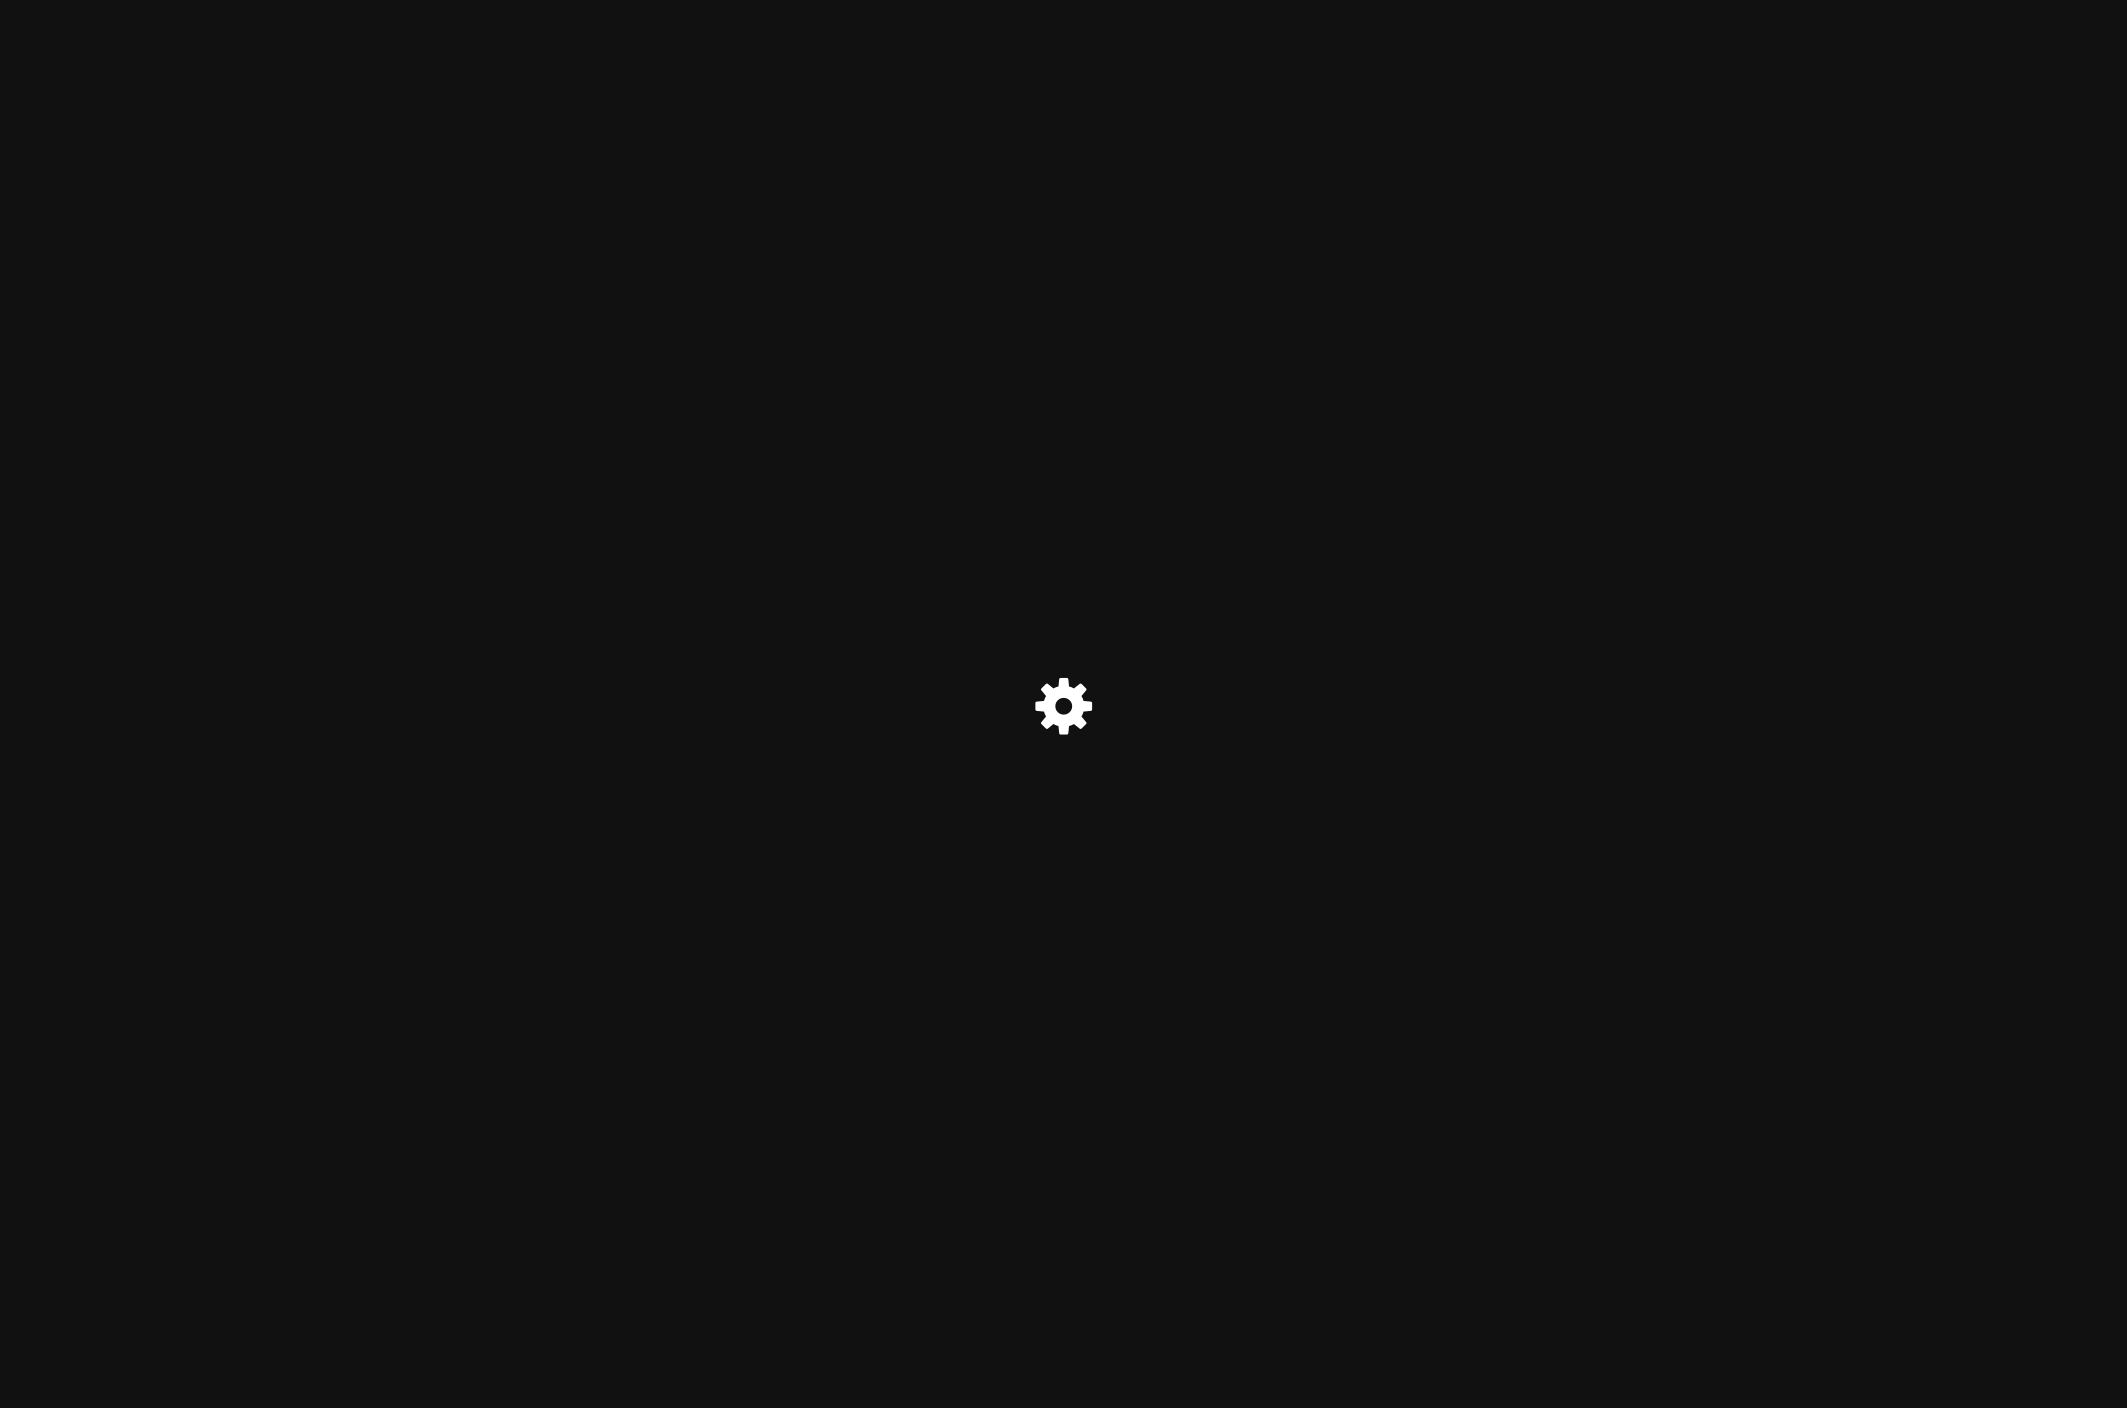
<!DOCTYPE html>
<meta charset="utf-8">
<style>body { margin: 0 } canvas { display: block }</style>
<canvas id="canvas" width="2127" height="1408"></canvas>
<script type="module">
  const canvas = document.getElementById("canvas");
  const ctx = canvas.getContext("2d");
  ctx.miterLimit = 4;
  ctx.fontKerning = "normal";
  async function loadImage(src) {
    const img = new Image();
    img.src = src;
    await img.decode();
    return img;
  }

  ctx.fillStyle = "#111111";
  ctx.fillRect(0, 0, 2127, 1408);
  ctx.drawImage(await loadImage("img1.png"), 1035, 677, 58, 58);
</script>
